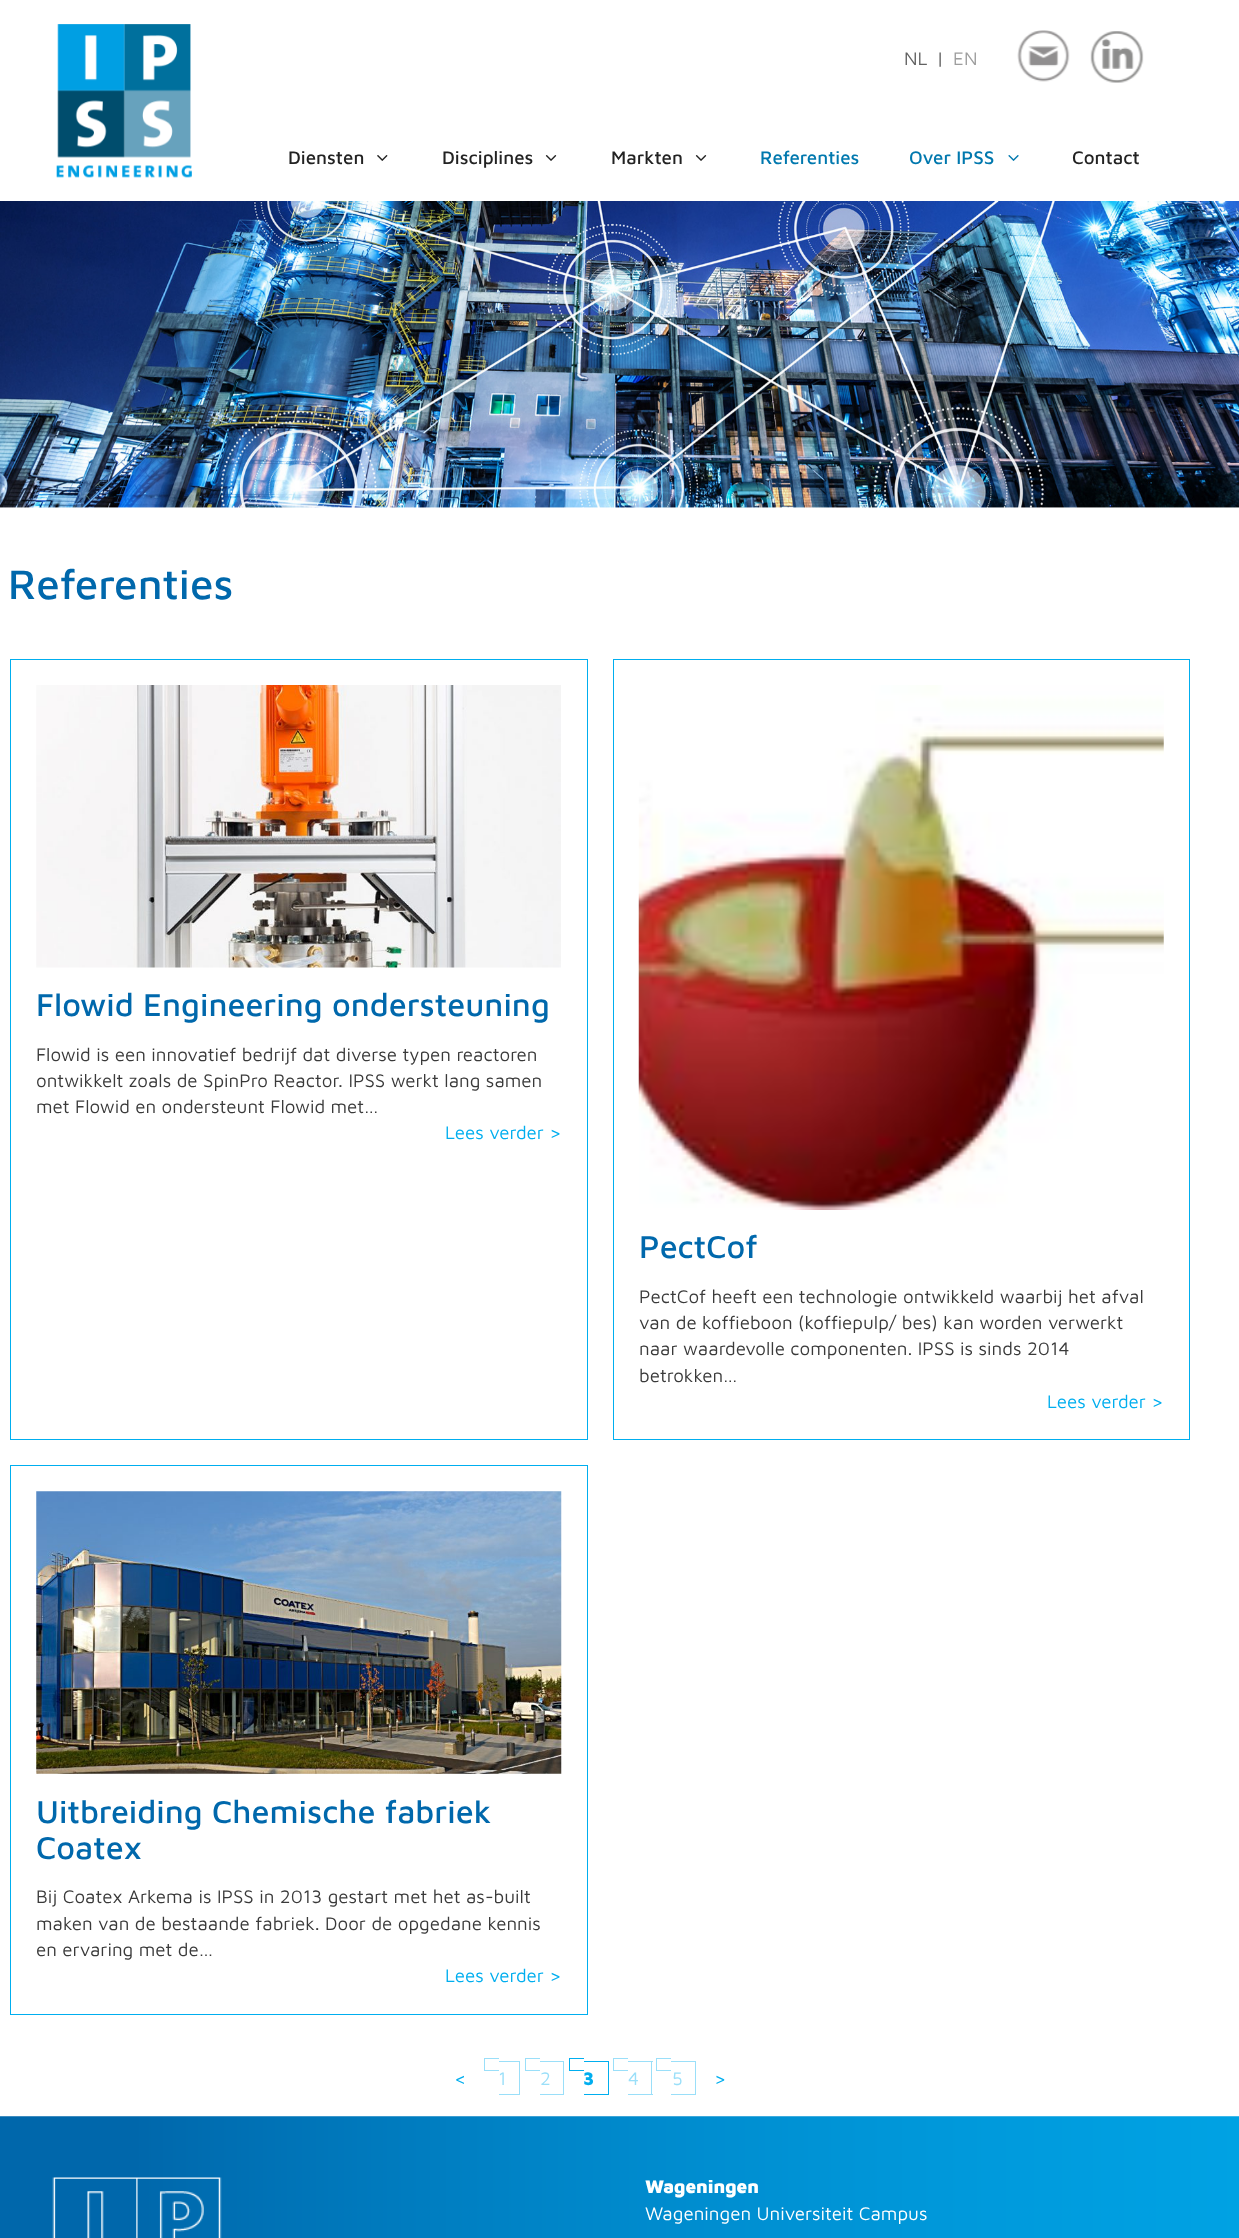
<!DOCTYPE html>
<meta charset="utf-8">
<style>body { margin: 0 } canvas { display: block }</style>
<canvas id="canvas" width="1239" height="2238"></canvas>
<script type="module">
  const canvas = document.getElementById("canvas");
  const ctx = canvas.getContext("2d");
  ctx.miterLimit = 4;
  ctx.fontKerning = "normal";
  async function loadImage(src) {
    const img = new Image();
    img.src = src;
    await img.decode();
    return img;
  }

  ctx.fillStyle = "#ffffff";
  ctx.fillRect(0, 0, 1239, 2238);
  ctx.drawImage(await loadImage("img1.png"), 56, 24, 136, 154);
  ctx.font = "18.75px Maven Pro";
  ctx.fillStyle = "#616161";
  ctx.fillText("NL", 904, 65);
  ctx.fillText("|", 936, 65);
  ctx.fillStyle = "#9d9d9d";
  ctx.fillText("EN", 953, 65);
  ctx.drawImage(await loadImage("img2.png"), 1017, 30, 53, 52);
  ctx.drawImage(await loadImage("img3.png"), 1090, 31, 54, 52);
  ctx.font = "500 18.75px Maven Pro";
  ctx.fillStyle = "#222222";
  ctx.fillText("Diensten", 288, 164);
  ctx.drawImage(await loadImage("img4.png"), 377, 155, 11, 6);
  ctx.fillText("Disciplines", 442, 164);
  ctx.drawImage(await loadImage("img5.png"), 545, 155, 12, 6);
  ctx.fillText("Markten", 611, 164);
  ctx.drawImage(await loadImage("img5.png"), 695, 155, 12, 6);
  ctx.fillStyle = "#0078ae";
  ctx.fillText("Referenties", 760, 164);
  ctx.fillText("Over IPSS", 909, 164);
  ctx.drawImage(await loadImage("img6.png"), 1008, 155, 11, 6);
  ctx.fillStyle = "#222222";
  ctx.fillText("Contact", 1072, 164);
  ctx.drawImage(await loadImage("img7.png"), 0, 201, 1239, 307);
  ctx.font = "500 42.5px Maven Pro";
  ctx.fillStyle = "#0068ac";
  ctx.fillText("Referenties", 8, 599);
  ctx.strokeStyle = "#00aeef";
  ctx.strokeRect(10.5, 659.5, 577, 780);
  ctx.drawImage(await loadImage("img8.png"), 36, 685, 525, 283);
  ctx.font = "500 32.5px Maven Pro";
  ctx.fillText("Flowid Engineering ondersteuning", 36, 1016);
  ctx.font = "18.75px Maven Pro";
  ctx.fillStyle = "#3a3a3a";
  ctx.fillText("Flowid is een innovatief bedrijf dat diverse typen reactoren", 36, 1061);
  ctx.fillText("ontwikkelt zoals de SpinPro Reactor. IPSS werkt lang samen", 36, 1087);
  ctx.fillText("met Flowid en ondersteunt Flowid met…", 36, 1113);
  ctx.fillStyle = "#00aeef";
  ctx.fillText("Lees verder >", 445, 1139);
  ctx.strokeRect(613.5, 659.5, 576, 780);
  ctx.drawImage(await loadImage("img9.png"), 638, 685, 526, 525);
  ctx.font = "500 32.5px Maven Pro";
  ctx.fillStyle = "#0068ac";
  ctx.fillText("PectCof", 639, 1258);
  ctx.font = "18.75px Maven Pro";
  ctx.fillStyle = "#3a3a3a";
  ctx.fillText("PectCof heeft een technologie ontwikkeld waarbij het afval", 639, 1303);
  ctx.fillText("van de koffieboon (koffiepulp/ bes) kan worden verwerkt", 639, 1329);
  ctx.fillText("naar waardevolle componenten. IPSS is sinds 2014", 639, 1355);
  ctx.fillText("betrokken…", 639, 1382);
  ctx.fillStyle = "#00aeef";
  ctx.fillText("Lees verder >", 1047, 1408);
  ctx.strokeRect(10.5, 1465.5, 577, 549);
  ctx.drawImage(await loadImage("img10.png"), 36, 1491, 526, 283);
  ctx.font = "500 32.5px Maven Pro";
  ctx.fillStyle = "#0068ac";
  ctx.fillText("Uitbreiding Chemische fabriek", 36, 1823);
  ctx.fillText("Coatex", 36, 1859);
  ctx.font = "18.75px Maven Pro";
  ctx.fillStyle = "#3a3a3a";
  ctx.fillText("Bij Coatex Arkema is IPSS in 2013 gestart met het as-built", 36, 1903);
  ctx.fillText("maken van de bestaande fabriek. Door de opgedane kennis", 36, 1930);
  ctx.fillText("en ervaring met de…", 36, 1956);
  ctx.fillStyle = "#00aeef";
  ctx.fillText("Lees verder >", 445, 1982);
  ctx.fillText("<", 454, 2085);
  ctx.fillStyle = "#9adff9";
  ctx.fillText("1", 498, 2085);
  ctx.fillRect(484, 2058, 15, 1);
  ctx.fillRect(484, 2070, 15, 1);
  ctx.fillRect(484, 2058, 1, 13);
  ctx.fillRect(499, 2061, 21, 1);
  ctx.fillRect(519, 2061, 1, 34);
  ctx.fillRect(499, 2094, 21, 1);
  ctx.fillText("2", 540, 2085);
  ctx.fillRect(525, 2058, 15, 1);
  ctx.fillRect(525, 2070, 15, 1);
  ctx.fillRect(525, 2058, 1, 13);
  ctx.fillRect(540, 2061, 24, 1);
  ctx.fillRect(563, 2061, 1, 34);
  ctx.fillRect(540, 2094, 24, 1);
  ctx.font = "900 18.75px Maven Pro";
  ctx.fillStyle = "#00aeef";
  ctx.fillText("3", 583, 2085);
  ctx.fillRect(569, 2058, 15, 1);
  ctx.fillRect(569, 2070, 15, 1);
  ctx.fillRect(569, 2058, 1, 13);
  ctx.fillRect(584, 2061, 25, 1);
  ctx.fillRect(608, 2061, 1, 34);
  ctx.fillRect(584, 2094, 25, 1);
  ctx.font = "18.75px Maven Pro";
  ctx.fillStyle = "#9adff9";
  ctx.fillText("4", 628, 2085);
  ctx.fillRect(613, 2058, 15, 1);
  ctx.fillRect(613, 2070, 15, 1);
  ctx.fillRect(613, 2058, 1, 13);
  ctx.fillRect(628, 2061, 25, 1);
  ctx.fillRect(651, 2061, 1, 34);
  ctx.fillRect(628, 2094, 25, 1);
  ctx.fillText("5", 672, 2085);
  ctx.fillRect(656, 2058, 15, 1);
  ctx.fillRect(656, 2070, 15, 1);
  ctx.fillRect(656, 2058, 1, 13);
  ctx.fillRect(671, 2061, 25, 1);
  ctx.fillRect(695, 2061, 1, 34);
  ctx.fillRect(671, 2094, 25, 1);
  ctx.fillStyle = "#00aeef";
  ctx.fillText(">", 714, 2085);
  ctx.drawImage(await loadImage("img11.png"), 0, 2116, 1239, 122);
  ctx.drawImage(await loadImage("img12.png"), 52, 2177, 170, 61);
  ctx.font = "900 18.75px Maven Pro";
  ctx.fillStyle = "#ffffff";
  ctx.fillText("Wageningen", 645, 2193);
  ctx.font = "18.75px Maven Pro";
  ctx.fillText("Wageningen Universiteit Campus", 645, 2220);
</script>
